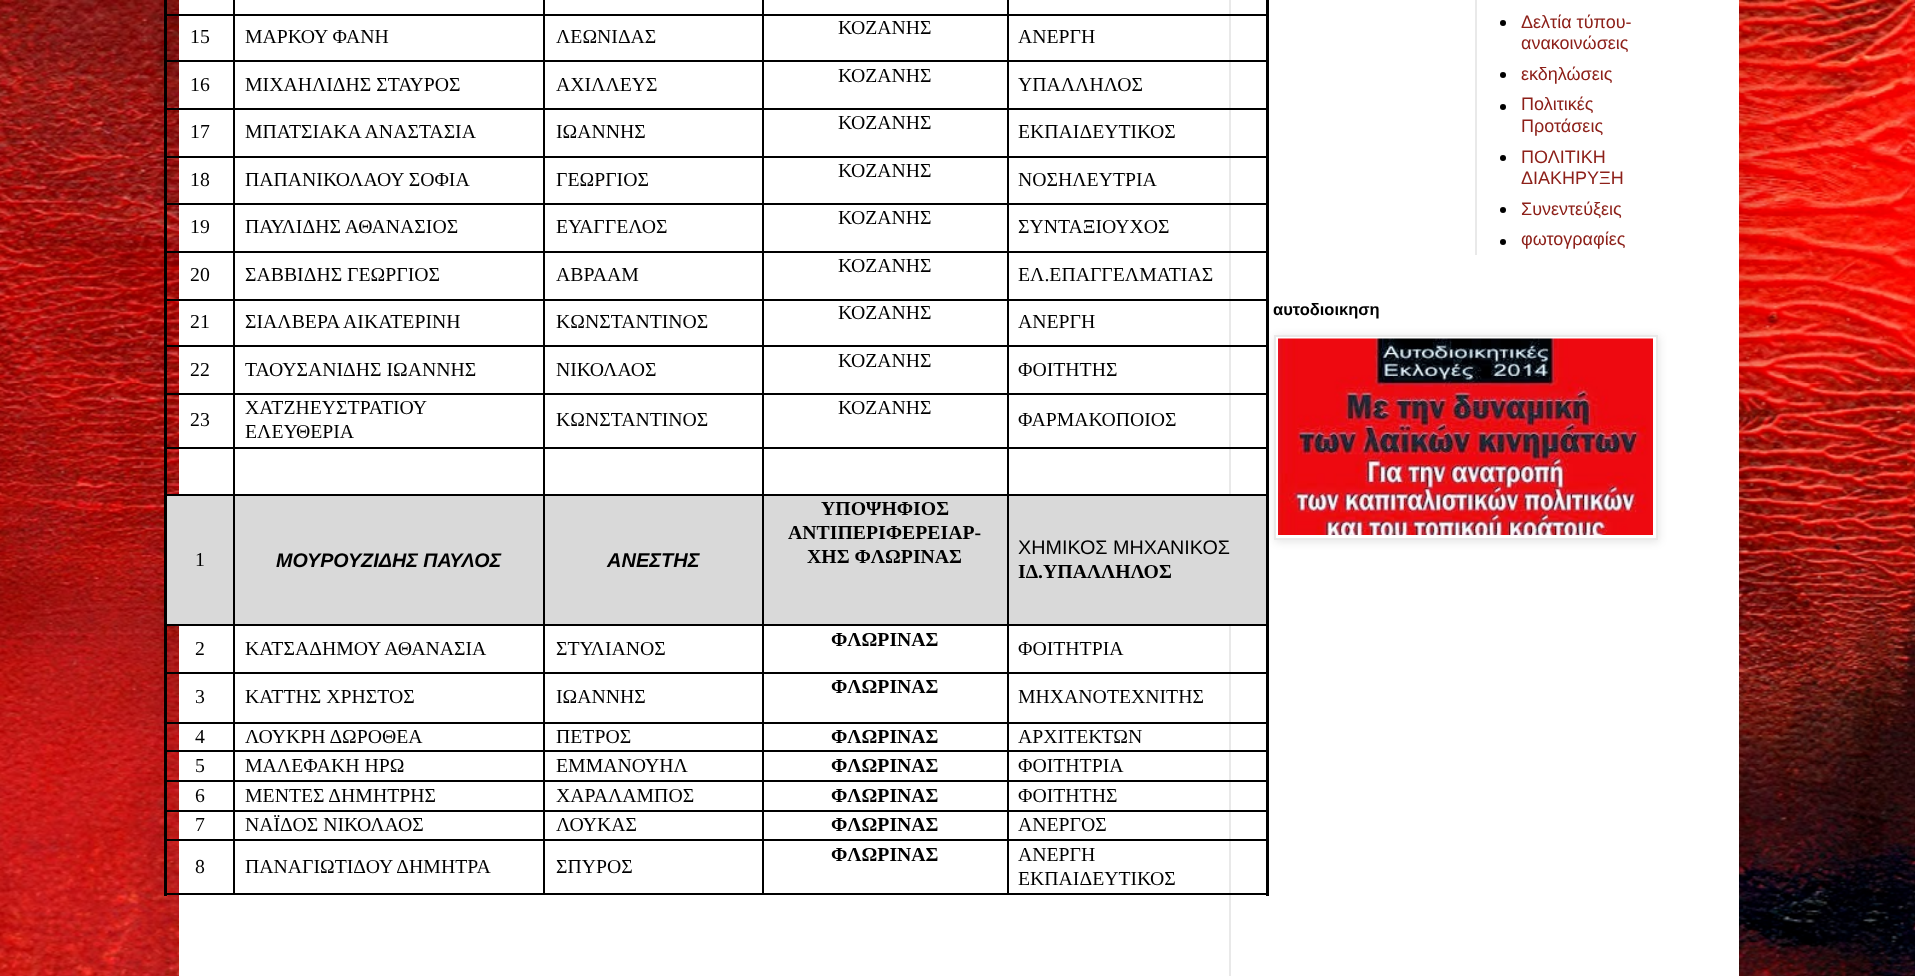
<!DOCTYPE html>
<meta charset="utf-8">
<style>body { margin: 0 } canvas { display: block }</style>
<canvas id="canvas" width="1915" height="976"></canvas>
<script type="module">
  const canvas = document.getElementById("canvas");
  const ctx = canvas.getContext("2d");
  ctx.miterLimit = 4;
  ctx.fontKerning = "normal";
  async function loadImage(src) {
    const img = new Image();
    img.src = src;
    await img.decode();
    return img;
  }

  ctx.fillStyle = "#ffffff";
  ctx.fillRect(0, 0, 1915, 976);
  ctx.drawImage(await loadImage("img1.png"), 0, 0, 1915, 976);
  ctx.fillStyle = "rgba(0, 0, 0, 0.15)";
  ctx.filter = "blur(30px)";
  ctx.beginPath();
  ctx.rect(179, -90, 1560, 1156);
  ctx.fill();
  ctx.filter = "none";
  ctx.fillStyle = "#ffffff";
  ctx.fillRect(179, 0, 1560, 976);
  ctx.fillStyle = "#e9e9e9";
  ctx.fillRect(1229, 0, 2, 976);
  ctx.fillStyle = "#000000";
  ctx.fillRect(1007, 893, 261, 2);
  ctx.fillRect(1007, 839, 2, 55);
  ctx.fillRect(1007, 839, 261, 2);
  ctx.fillRect(1007, 810, 2, 30);
  ctx.fillRect(1007, 810, 261, 2);
  ctx.fillRect(1007, 780, 2, 32);
  ctx.fillRect(1007, 780, 261, 2);
  ctx.fillRect(1007, 750, 2, 32);
  ctx.fillRect(1007, 750, 261, 2);
  ctx.fillRect(1007, 722, 2, 30);
  ctx.fillRect(1007, 722, 261, 2);
  ctx.fillRect(1007, 672, 2, 51);
  ctx.fillRect(1007, 672, 261, 2);
  ctx.fillRect(1007, 624, 2, 50);
  ctx.fillRect(1007, 624, 261, 2);
  ctx.fillRect(1007, 494, 2, 132);
  ctx.fillRect(1007, 494, 261, 2);
  ctx.fillRect(1007, 447, 2, 48);
  ctx.fillRect(1007, 447, 261, 2);
  ctx.fillRect(1007, 393, 2, 56);
  ctx.fillRect(1007, 393, 261, 2);
  ctx.fillRect(1007, 345, 2, 50);
  ctx.fillRect(1007, 345, 261, 2);
  ctx.fillRect(1007, 299, 2, 48);
  ctx.fillRect(1007, 299, 261, 2);
  ctx.fillRect(1007, 251, 2, 49);
  ctx.fillRect(1007, 251, 261, 2);
  ctx.fillRect(1007, 203, 2, 49);
  ctx.fillRect(1007, 203, 261, 2);
  ctx.fillRect(1007, 156, 2, 48);
  ctx.fillRect(1007, 156, 261, 2);
  ctx.fillRect(1007, 108, 2, 50);
  ctx.fillRect(1007, 108, 261, 2);
  ctx.fillRect(1007, 60, 2, 50);
  ctx.fillRect(1007, 60, 261, 2);
  ctx.fillRect(1007, 14, 2, 48);
  ctx.fillRect(1007, 14, 261, 2);
  ctx.fillRect(1007, 0, 2, 15);
  ctx.fillRect(762, 893, 246, 2);
  ctx.fillRect(762, 839, 2, 55);
  ctx.fillRect(762, 839, 246, 2);
  ctx.fillRect(762, 810, 2, 30);
  ctx.fillRect(762, 810, 246, 2);
  ctx.fillRect(762, 780, 2, 32);
  ctx.fillRect(762, 780, 246, 2);
  ctx.fillRect(762, 750, 2, 32);
  ctx.fillRect(762, 750, 246, 2);
  ctx.fillRect(762, 722, 2, 30);
  ctx.fillRect(762, 722, 246, 2);
  ctx.fillRect(762, 672, 2, 51);
  ctx.fillRect(762, 672, 246, 2);
  ctx.fillRect(762, 624, 2, 50);
  ctx.fillRect(762, 624, 246, 2);
  ctx.fillRect(762, 494, 2, 132);
  ctx.fillRect(762, 494, 246, 2);
  ctx.fillRect(762, 447, 2, 48);
  ctx.fillRect(762, 447, 246, 2);
  ctx.fillRect(762, 393, 2, 56);
  ctx.fillRect(762, 393, 246, 2);
  ctx.fillRect(762, 345, 2, 50);
  ctx.fillRect(762, 345, 246, 2);
  ctx.fillRect(762, 299, 2, 48);
  ctx.fillRect(762, 299, 246, 2);
  ctx.fillRect(762, 251, 2, 49);
  ctx.fillRect(762, 251, 246, 2);
  ctx.fillRect(762, 203, 2, 49);
  ctx.fillRect(762, 203, 246, 2);
  ctx.fillRect(762, 156, 2, 48);
  ctx.fillRect(762, 156, 246, 2);
  ctx.fillRect(762, 108, 2, 50);
  ctx.fillRect(762, 108, 246, 2);
  ctx.fillRect(762, 60, 2, 50);
  ctx.fillRect(762, 60, 246, 2);
  ctx.fillRect(762, 14, 2, 48);
  ctx.fillRect(762, 14, 246, 2);
  ctx.fillRect(762, 0, 2, 15);
  ctx.fillRect(543, 893, 221, 2);
  ctx.fillRect(543, 839, 2, 55);
  ctx.fillRect(543, 839, 221, 2);
  ctx.fillRect(543, 810, 2, 30);
  ctx.fillRect(543, 810, 221, 2);
  ctx.fillRect(543, 780, 2, 32);
  ctx.fillRect(543, 780, 221, 2);
  ctx.fillRect(543, 750, 2, 32);
  ctx.fillRect(543, 750, 221, 2);
  ctx.fillRect(543, 722, 2, 30);
  ctx.fillRect(543, 722, 221, 2);
  ctx.fillRect(543, 672, 2, 51);
  ctx.fillRect(543, 672, 221, 2);
  ctx.fillRect(543, 624, 2, 50);
  ctx.fillRect(543, 624, 221, 2);
  ctx.fillRect(543, 494, 2, 132);
  ctx.fillRect(543, 494, 221, 2);
  ctx.fillRect(543, 447, 2, 48);
  ctx.fillRect(543, 447, 221, 2);
  ctx.fillRect(543, 393, 2, 56);
  ctx.fillRect(543, 393, 221, 2);
  ctx.fillRect(543, 345, 2, 50);
  ctx.fillRect(543, 345, 221, 2);
  ctx.fillRect(543, 299, 2, 48);
  ctx.fillRect(543, 299, 221, 2);
  ctx.fillRect(543, 251, 2, 49);
  ctx.fillRect(543, 251, 221, 2);
  ctx.fillRect(543, 203, 2, 49);
  ctx.fillRect(543, 203, 221, 2);
  ctx.fillRect(543, 156, 2, 48);
  ctx.fillRect(543, 156, 221, 2);
  ctx.fillRect(543, 108, 2, 50);
  ctx.fillRect(543, 108, 221, 2);
  ctx.fillRect(543, 60, 2, 50);
  ctx.fillRect(543, 60, 221, 2);
  ctx.fillRect(543, 14, 2, 48);
  ctx.fillRect(543, 14, 221, 2);
  ctx.fillRect(543, 0, 2, 15);
  ctx.fillRect(233, 893, 312, 2);
  ctx.fillRect(233, 839, 2, 55);
  ctx.fillRect(233, 839, 312, 2);
  ctx.fillRect(233, 810, 2, 30);
  ctx.fillRect(233, 810, 312, 2);
  ctx.fillRect(233, 780, 2, 32);
  ctx.fillRect(233, 780, 312, 2);
  ctx.fillRect(233, 750, 2, 32);
  ctx.fillRect(233, 750, 312, 2);
  ctx.fillRect(233, 722, 2, 30);
  ctx.fillRect(233, 722, 312, 2);
  ctx.fillRect(233, 672, 2, 51);
  ctx.fillRect(233, 672, 312, 2);
  ctx.fillRect(233, 624, 2, 50);
  ctx.fillRect(233, 624, 312, 2);
  ctx.fillRect(233, 494, 2, 132);
  ctx.fillRect(233, 494, 312, 2);
  ctx.fillRect(233, 447, 2, 48);
  ctx.fillRect(233, 447, 312, 2);
  ctx.fillRect(233, 393, 2, 56);
  ctx.fillRect(233, 393, 312, 2);
  ctx.fillRect(233, 345, 2, 50);
  ctx.fillRect(233, 345, 312, 2);
  ctx.fillRect(233, 299, 2, 48);
  ctx.fillRect(233, 299, 312, 2);
  ctx.fillRect(233, 251, 2, 49);
  ctx.fillRect(233, 251, 312, 2);
  ctx.fillRect(233, 203, 2, 49);
  ctx.fillRect(233, 203, 312, 2);
  ctx.fillRect(233, 156, 2, 48);
  ctx.fillRect(233, 156, 312, 2);
  ctx.fillRect(233, 108, 2, 50);
  ctx.fillRect(233, 108, 312, 2);
  ctx.fillRect(233, 60, 2, 50);
  ctx.fillRect(233, 60, 312, 2);
  ctx.fillRect(233, 14, 2, 48);
  ctx.fillRect(233, 14, 312, 2);
  ctx.fillRect(233, 0, 2, 15);
  ctx.fillRect(164, 14, 70, 2);
  ctx.font = "19.75px Liberation Serif";
  ctx.fillText("ΚΟΖΑΝΗΣ", 838, 34);
  ctx.fillRect(164, 60, 70, 2);
  ctx.fillText("15", 190, 43);
  ctx.fillText("ΜΑΡΚΟΥ ΦΑΝΗ", 245, 43);
  ctx.fillText("ΛΕΩΝΙΔΑΣ", 556, 43);
  ctx.fillText("ΑΝΕΡΓΗ", 1018, 43);
  ctx.fillText("ΚΟΖΑΝΗΣ", 838, 82);
  ctx.fillRect(164, 108, 70, 2);
  ctx.fillText("16", 190, 91);
  ctx.fillText("ΜΙΧΑΗΛΙΔΗΣ ΣΤΑΥΡΟΣ", 245, 91);
  ctx.fillText("ΑΧΙΛΛΕΥΣ", 556, 91);
  ctx.fillText("ΥΠΑΛΛΗΛΟΣ", 1018, 91);
  ctx.fillRect(164, 156, 70, 2);
  ctx.fillText("17", 190, 138);
  ctx.fillText("ΜΠΑΤΣΙΑΚΑ ΑΝΑΣΤΑΣΙΑ", 245, 138);
  ctx.fillText("ΙΩΑΝΝΗΣ", 556, 138);
  ctx.fillText("ΚΟΖΑΝΗΣ", 838, 129);
  ctx.fillText("ΕΚΠΑΙΔΕΥΤΙΚΟΣ", 1018, 138);
  ctx.fillText("ΚΟΖΑΝΗΣ", 838, 177);
  ctx.fillRect(164, 203, 70, 2);
  ctx.fillText("18", 190, 186);
  ctx.fillText("ΠΑΠΑΝΙΚΟΛΑΟΥ ΣΟΦΙΑ", 245, 186);
  ctx.fillText("ΓΕΩΡΓΙΟΣ", 556, 186);
  ctx.fillText("ΝΟΣΗΛΕΥΤΡΙΑ", 1018, 186);
  ctx.fillText("ΚΟΖΑΝΗΣ", 838, 224);
  ctx.fillRect(164, 251, 70, 2);
  ctx.fillText("19", 190, 233);
  ctx.fillText("ΠΑΥΛΙΔΗΣ ΑΘΑΝΑΣΙΟΣ", 245, 233);
  ctx.fillText("ΕΥΑΓΓΕΛΟΣ", 556, 233);
  ctx.fillText("ΣΥΝΤΑΞΙΟΥΧΟΣ", 1018, 233);
  ctx.fillText("ΚΟΖΑΝΗΣ", 838, 272);
  ctx.fillRect(164, 299, 70, 2);
  ctx.fillText("20", 190, 281);
  ctx.fillText("ΣΑΒΒΙΔΗΣ ΓΕΩΡΓΙΟΣ", 245, 281);
  ctx.fillText("ΑΒΡΑΑΜ", 556, 281);
  ctx.fillText("ΕΛ.ΕΠΑΓΓΕΛΜΑΤΙΑΣ", 1018, 281);
  ctx.fillRect(164, 345, 70, 2);
  ctx.fillText("21", 190, 328);
  ctx.fillText("ΣΙΑΛΒΕΡΑ ΑΙΚΑΤΕΡΙΝΗ", 245, 328);
  ctx.fillText("ΚΩΝΣΤΑΝΤΙΝΟΣ", 556, 328);
  ctx.fillText("ΚΟΖΑΝΗΣ", 838, 319);
  ctx.fillText("ΑΝΕΡΓΗ", 1018, 328);
  ctx.fillRect(164, 393, 70, 2);
  ctx.fillText("22", 190, 376);
  ctx.fillText("ΤΑΟΥΣΑΝΙΔΗΣ ΙΩΑΝΝΗΣ", 245, 376);
  ctx.fillText("ΝΙΚΟΛΑΟΣ", 556, 376);
  ctx.fillText("ΚΟΖΑΝΗΣ", 838, 367);
  ctx.fillText("ΦΟΙΤΗΤΗΣ", 1018, 376);
  ctx.fillText("ΧΑΤΖΗΕΥΣΤΡΑΤΙΟΥ", 245, 414);
  ctx.fillText("ΕΛΕΥΘΕΡΙΑ", 245, 438);
  ctx.fillText("ΚΟΖΑΝΗΣ", 838, 414);
  ctx.fillRect(164, 447, 70, 2);
  ctx.fillText("23", 190, 426);
  ctx.fillText("ΚΩΝΣΤΑΝΤΙΝΟΣ", 556, 426);
  ctx.fillText("ΦΑΡΜΑΚΟΠΟΙΟΣ", 1018, 426);
  ctx.fillRect(164, 494, 70, 2);
  ctx.fillStyle = "#d9d9d9";
  ctx.fillRect(167, 496, 66, 128);
  ctx.fillStyle = "#000000";
  ctx.fillRect(164, 624, 70, 2);
  ctx.fillText("1", 195, 566);
  ctx.fillStyle = "#d9d9d9";
  ctx.fillRect(235, 496, 308, 128);
  ctx.font = "italic bold 19.75px Liberation Sans";
  ctx.fillStyle = "#000000";
  ctx.fillText("ΜΟΥΡΟΥΖΙΔΗΣ ΠΑΥΛΟΣ", 276, 567);
  ctx.fillStyle = "#d9d9d9";
  ctx.fillRect(545, 496, 217, 128);
  ctx.font = "italic bold 20px Liberation Sans";
  ctx.fillStyle = "#000000";
  ctx.fillText("ΑΝΕΣΤΗΣ", 607, 567);
  ctx.fillStyle = "#d9d9d9";
  ctx.fillRect(764, 496, 243, 128);
  ctx.font = "bold 19.75px Liberation Serif";
  ctx.fillStyle = "#000000";
  ctx.fillText("ΥΠΟΨΗΦΙΟΣ", 821, 515);
  ctx.fillText("ΑΝΤΙΠΕΡΙΦΕΡΕΙΑΡ-", 788, 539);
  ctx.fillText("ΧΗΣ ΦΛΩΡΙΝΑΣ", 807, 563);
  ctx.fillStyle = "#d9d9d9";
  ctx.fillRect(1009, 496, 257, 128);
  ctx.font = "19.75px Liberation Sans";
  ctx.fillStyle = "#000000";
  ctx.fillText("ΧΗΜΙΚΟΣ ΜΗΧΑΝΙΚΟΣ", 1018, 554);
  ctx.font = "bold 19.75px Liberation Serif";
  ctx.fillText("ΙΔ.ΥΠΑΛΛΗΛΟΣ", 1018, 578);
  ctx.fillText("ΦΛΩΡΙΝΑΣ", 831, 646);
  ctx.fillRect(164, 672, 70, 2);
  ctx.font = "19.75px Liberation Serif";
  ctx.fillText("2", 195, 655);
  ctx.fillText("ΚΑΤΣΑΔΗΜΟΥ ΑΘΑΝΑΣΙΑ", 245, 655);
  ctx.fillText("ΣΤΥΛΙΑΝΟΣ", 556, 655);
  ctx.fillText("ΦΟΙΤΗΤΡΙΑ", 1018, 655);
  ctx.font = "bold 19.75px Liberation Serif";
  ctx.fillText("ΦΛΩΡΙΝΑΣ", 831, 693);
  ctx.fillRect(164, 722, 70, 2);
  ctx.font = "19.75px Liberation Serif";
  ctx.fillText("3", 195, 703);
  ctx.fillText("ΚΑΤΤΗΣ ΧΡΗΣΤΟΣ", 245, 703);
  ctx.fillText("ΙΩΑΝΝΗΣ", 556, 703);
  ctx.fillText("ΜΗΧΑΝΟΤΕΧΝΙΤΗΣ", 1018, 703);
  ctx.fillRect(164, 750, 70, 2);
  ctx.fillText("4", 195, 743);
  ctx.fillText("ΛΟΥΚΡΗ ΔΩΡΟΘΕΑ", 245, 743);
  ctx.fillText("ΠΕΤΡΟΣ", 556, 743);
  ctx.font = "bold 19.75px Liberation Serif";
  ctx.fillText("ΦΛΩΡΙΝΑΣ", 831, 743);
  ctx.font = "19.75px Liberation Serif";
  ctx.fillText("ΑΡΧΙΤΕΚΤΩΝ", 1018, 743);
  ctx.fillRect(164, 780, 70, 2);
  ctx.fillText("5", 195, 772);
  ctx.fillText("ΜΑΛΕΦΑΚΗ ΗΡΩ", 245, 772);
  ctx.fillText("ΕΜΜΑΝΟΥΗΛ", 556, 772);
  ctx.font = "bold 19.75px Liberation Serif";
  ctx.fillText("ΦΛΩΡΙΝΑΣ", 831, 772);
  ctx.font = "19.75px Liberation Serif";
  ctx.fillText("ΦΟΙΤΗΤΡΙΑ", 1018, 772);
  ctx.fillRect(164, 810, 70, 2);
  ctx.fillText("6", 195, 802);
  ctx.fillText("ΜΕΝΤΕΣ ΔΗΜΗΤΡΗΣ", 245, 802);
  ctx.fillText("ΧΑΡΑΛΑΜΠΟΣ", 556, 802);
  ctx.font = "bold 19.75px Liberation Serif";
  ctx.fillText("ΦΛΩΡΙΝΑΣ", 831, 802);
  ctx.font = "19.75px Liberation Serif";
  ctx.fillText("ΦΟΙΤΗΤΗΣ", 1018, 802);
  ctx.fillRect(164, 839, 70, 2);
  ctx.fillText("7", 195, 831);
  ctx.fillText("ΝΑΪΔΟΣ ΝΙΚΟΛΑΟΣ", 245, 831);
  ctx.fillText("ΛΟΥΚΑΣ", 556, 831);
  ctx.font = "bold 19.75px Liberation Serif";
  ctx.fillText("ΦΛΩΡΙΝΑΣ", 831, 831);
  ctx.font = "19.75px Liberation Serif";
  ctx.fillText("ΑΝΕΡΓΟΣ", 1018, 831);
  ctx.fillRect(164, 893, 70, 2);
  ctx.fillRect(164, 0, 3, 896);
  ctx.fillText("8", 195, 873);
  ctx.fillText("ΠΑΝΑΓΙΩΤΙΔΟΥ ΔΗΜΗΤΡΑ", 245, 873);
  ctx.fillText("ΣΠΥΡΟΣ", 556, 873);
  ctx.font = "bold 19.75px Liberation Serif";
  ctx.fillText("ΦΛΩΡΙΝΑΣ", 831, 861);
  ctx.fillRect(1266, 0, 3, 896);
  ctx.font = "19.75px Liberation Serif";
  ctx.fillText("ΑΝΕΡΓΗ", 1018, 861);
  ctx.fillText("ΕΚΠΑΙΔΕΥΤΙΚΟΣ", 1018, 885);
  ctx.fillStyle = "#e9e9e9";
  ctx.fillRect(1475, 0, 2, 255);
  ctx.fillStyle = "#000000";
  ctx.beginPath();
  ctx.arc(1503, 23, 3, 0, Math.PI * 2);
  ctx.fill();
  ctx.font = "18px Liberation Sans";
  ctx.fillStyle = "#8d2019";
  ctx.fillText("Δελτία τύπου-", 1521, 28);
  ctx.fillText("ανακοινώσεις", 1521, 49);
  ctx.fillStyle = "#000000";
  ctx.beginPath();
  ctx.arc(1503, 75, 3, 0, Math.PI * 2);
  ctx.fill();
  ctx.fillStyle = "#8d2019";
  ctx.fillText("εκδηλώσεις", 1521, 80);
  ctx.fillStyle = "#000000";
  ctx.beginPath();
  ctx.arc(1503, 107, 3, 0, Math.PI * 2);
  ctx.fill();
  ctx.fillStyle = "#8d2019";
  ctx.fillText("Πολιτικές", 1521, 110);
  ctx.fillText("Προτάσεις", 1521, 132);
  ctx.fillStyle = "#000000";
  ctx.beginPath();
  ctx.arc(1503, 158, 3, 0, Math.PI * 2);
  ctx.fill();
  ctx.fillStyle = "#8d2019";
  ctx.fillText("ΠΟΛΙΤΙΚΗ", 1521, 163);
  ctx.fillText("ΔΙΑΚΗΡΥΞΗ", 1521, 184);
  ctx.fillStyle = "#000000";
  ctx.beginPath();
  ctx.arc(1503, 210, 3, 0, Math.PI * 2);
  ctx.fill();
  ctx.fillStyle = "#8d2019";
  ctx.fillText("Συνεντεύξεις", 1521, 215);
  ctx.fillStyle = "#000000";
  ctx.beginPath();
  ctx.arc(1503, 242, 3, 0, Math.PI * 2);
  ctx.fill();
  ctx.fillStyle = "#8d2019";
  ctx.fillText("φωτογραφίες", 1521, 245);
  ctx.font = "bold 16.5px Liberation Sans";
  ctx.fillStyle = "#000000";
  ctx.fillText("αυτοδιοικηση", 1273, 315);
  ctx.fillStyle = "rgba(0, 0, 0, 0.1)";
  ctx.filter = "blur(4px)";
  ctx.beginPath();
  ctx.rect(1275, 336, 384, 206);
  ctx.fill();
  ctx.filter = "none";
  ctx.fillStyle = "#ffffff";
  ctx.beginPath();
  ctx.rect(1275, 336, 382, 203);
  ctx.fill();
  ctx.strokeStyle = "#e9e9e9";
  ctx.lineWidth = 2;
  ctx.stroke();
  ctx.drawImage(await loadImage("img2.png"), 1278, 338, 375, 197);
</script>
